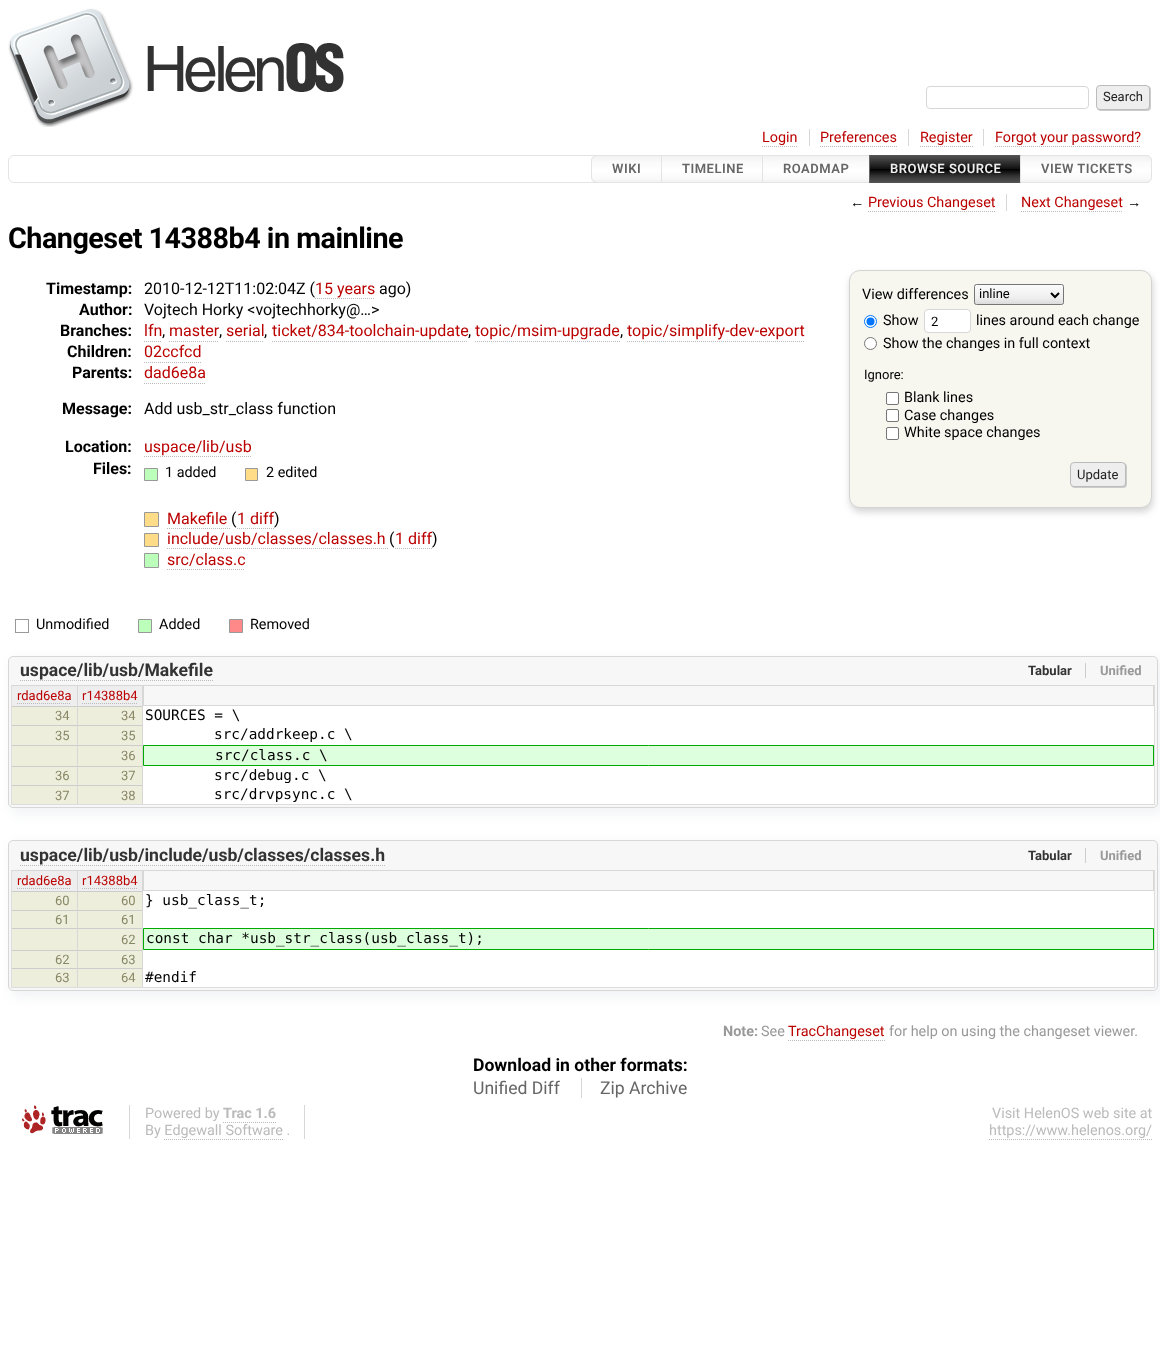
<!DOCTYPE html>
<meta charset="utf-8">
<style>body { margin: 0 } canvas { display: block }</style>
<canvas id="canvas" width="1160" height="1369"></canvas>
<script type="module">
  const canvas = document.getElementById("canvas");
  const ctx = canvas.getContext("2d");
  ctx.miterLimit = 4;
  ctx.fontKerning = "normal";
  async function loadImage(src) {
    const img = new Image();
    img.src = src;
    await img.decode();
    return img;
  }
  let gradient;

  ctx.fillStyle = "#ffffff";
  ctx.fillRect(0, 0, 1160, 1369);
  ctx.drawImage(await loadImage("img1.png"), 8, 8, 336, 119);
  ctx.beginPath();
  ctx.roundRect(926.5, 86.5, 162, 22, 3.5);
  ctx.strokeStyle = "#d7d7d7";
  ctx.stroke();
  ctx.fillStyle = "#cccccc";
  ctx.filter = "blur(0.5px)";
  ctx.beginPath();
  ctx.roundRect(1097, 86, 54, 25, 4);
  ctx.fill();
  ctx.filter = "none";
  ctx.fillStyle = "#eeeeee";
  ctx.beginPath();
  ctx.roundRect(1096.5, 85.5, 53, 24, 3.5);
  ctx.fill();
  ctx.strokeStyle = "#bbbbbb";
  ctx.stroke();
  ctx.font = "13px Roboto";
  ctx.fillStyle = "#222222";
  ctx.fillText("Search", 1103, 101);
  ctx.fillStyle = "#d7d7d7";
  ctx.fillRect(809, 129, 1, 17);
  ctx.font = "14.4px Roboto";
  ctx.fillStyle = "#bb0000";
  ctx.fillText("Login", 762, 142);
  ctx.beginPath();
  ctx.moveTo(762, 146.5);
  ctx.lineTo(798, 146.5);
  ctx.setLineDash([1, 1]);
  ctx.stroke();
  ctx.fillStyle = "#d7d7d7";
  ctx.fillRect(908, 129, 1, 17);
  ctx.fillStyle = "#bb0000";
  ctx.fillText("Preferences", 820, 142);
  ctx.beginPath();
  ctx.moveTo(820, 146.5);
  ctx.lineTo(897, 146.5);
  ctx.stroke();
  ctx.fillStyle = "#d7d7d7";
  ctx.fillRect(983, 129, 1, 17);
  ctx.fillStyle = "#bb0000";
  ctx.fillText("Register", 920, 142);
  ctx.beginPath();
  ctx.moveTo(920, 146.5);
  ctx.lineTo(973, 146.5);
  ctx.stroke();
  ctx.fillText("Forgot your password?", 995, 142);
  ctx.beginPath();
  ctx.moveTo(995, 146.5);
  ctx.lineTo(1141, 146.5);
  ctx.stroke();
  ctx.beginPath();
  ctx.roundRect(8.5, 155.5, 1143, 27, 5.5);
  ctx.strokeStyle = "#e4e4e4";
  ctx.setLineDash([]);
  ctx.stroke();
  ctx.save();
  ctx.beginPath();
  ctx.roundRect(591, 155, 71, 28, [6, 0, 0, 6]);
  ctx.clip();
  gradient = ctx.createLinearGradient(627, 156, 627, 182);
  gradient.addColorStop(0, "#f2f2f2");
  gradient.addColorStop(0.25, "#fafafa");
  gradient.addColorStop(0.49, "#fefefe");
  gradient.addColorStop(0.51, "#ffffff");
  gradient.addColorStop(0.85, "#fafafa");
  gradient.addColorStop(1, "#f2f2f2");
  ctx.fillStyle = gradient;
  ctx.fillRect(591, 156, 70, 26);
  ctx.restore();
  ctx.beginPath();
  ctx.roundRect(591.5, 155.5, 70, 27, [5.5, 0, 0, 5.5]);
  ctx.stroke();
  ctx.letterSpacing = "0.5px";
  ctx.font = "600 13px Roboto";
  ctx.fillStyle = "#666666";
  ctx.fillText("WIKI", 612, 173);
  gradient = ctx.createLinearGradient(713, 156, 713, 182);
  gradient.addColorStop(0, "#f2f2f2");
  gradient.addColorStop(0.25, "#fafafa");
  gradient.addColorStop(0.49, "#fefefe");
  gradient.addColorStop(0.51, "#ffffff");
  gradient.addColorStop(0.85, "#fafafa");
  gradient.addColorStop(1, "#f2f2f2");
  ctx.fillStyle = gradient;
  ctx.fillRect(662, 156, 100, 26);
  ctx.strokeRect(661.5, 155.5, 102, 27);
  ctx.fillStyle = "#666666";
  ctx.fillText("TIMELINE", 682, 173);
  gradient = ctx.createLinearGradient(816, 156, 816, 182);
  gradient.addColorStop(0, "#f2f2f2");
  gradient.addColorStop(0.25, "#fafafa");
  gradient.addColorStop(0.49, "#fefefe");
  gradient.addColorStop(0.51, "#ffffff");
  gradient.addColorStop(0.85, "#fafafa");
  gradient.addColorStop(1, "#f2f2f2");
  ctx.fillStyle = gradient;
  ctx.fillRect(763, 156, 106, 26);
  ctx.strokeRect(762.5, 155.5, 107, 27);
  ctx.fillStyle = "#666666";
  ctx.fillText("ROADMAP", 783, 173);
  ctx.strokeStyle = "#666666";
  ctx.strokeRect(869.5, 155.5, 151, 27);
  gradient = ctx.createLinearGradient(945, 155, 945, 183);
  gradient.addColorStop(0, "#555555");
  gradient.addColorStop(0.25, "#333333");
  gradient.addColorStop(0.49, "#111111");
  gradient.addColorStop(0.51, "#000000");
  gradient.addColorStop(0.75, "#333333");
  gradient.addColorStop(1, "#555555");
  ctx.fillStyle = gradient;
  ctx.fillRect(870, 155, 150, 28);
  ctx.fillStyle = "#eeeeee";
  ctx.fillText("BROWSE SOURCE", 890, 173);
  ctx.save();
  ctx.beginPath();
  ctx.roundRect(1020, 155, 132, 28, [0, 6, 6, 0]);
  ctx.clip();
  gradient = ctx.createLinearGradient(1086, 156, 1086, 182);
  gradient.addColorStop(0, "#f2f2f2");
  gradient.addColorStop(0.25, "#fafafa");
  gradient.addColorStop(0.49, "#fefefe");
  gradient.addColorStop(0.51, "#ffffff");
  gradient.addColorStop(0.85, "#fafafa");
  gradient.addColorStop(1, "#f2f2f2");
  ctx.fillStyle = gradient;
  ctx.fillRect(1021, 156, 131, 26);
  ctx.restore();
  ctx.beginPath();
  ctx.roundRect(1020.5, 155.5, 131, 27, [0, 5.5, 5.5, 0]);
  ctx.strokeStyle = "#e4e4e4";
  ctx.stroke();
  ctx.fillStyle = "#666666";
  ctx.fillText("VIEW TICKETS", 1041, 173);
  ctx.fillStyle = "#d7d7d7";
  ctx.fillRect(1006, 194, 1, 17);
  ctx.letterSpacing = "0px";
  ctx.font = "14.4px Liberation Sans";
  ctx.fillStyle = "#000000";
  ctx.fillText("←", 850, 207);
  ctx.font = "14.4px Roboto";
  ctx.fillStyle = "#bb0000";
  ctx.fillText("Previous Changeset", 868, 207);
  ctx.beginPath();
  ctx.moveTo(868, 211.5);
  ctx.lineTo(995, 211.5);
  ctx.strokeStyle = "#bbbbbb";
  ctx.setLineDash([1, 1]);
  ctx.stroke();
  ctx.fillText("Next Changeset", 1021, 207);
  ctx.beginPath();
  ctx.moveTo(1021, 211.5);
  ctx.lineTo(1123, 211.5);
  ctx.stroke();
  ctx.font = "14.4px Liberation Sans";
  ctx.fillStyle = "#000000";
  ctx.fillText("→", 1127, 207);
  ctx.letterSpacing = "-0.5px";
  ctx.font = "bold 28.75px Roboto";
  ctx.fillText("Changeset 14388b4 in mainline", 8, 248);
  ctx.letterSpacing = "0px";
  ctx.font = "bold 16px Roboto";
  ctx.fillText("Timestamp:", 46, 294);
  ctx.font = "16px Roboto";
  ctx.fillText("2010-12-12T11:02:04Z (", 144, 294);
  ctx.fillStyle = "#bb0000";
  ctx.fillText("15 years", 315, 294);
  ctx.beginPath();
  ctx.moveTo(315, 298.5);
  ctx.lineTo(375, 298.5);
  ctx.stroke();
  ctx.fillStyle = "#000000";
  ctx.fillText("ago)", 379, 294);
  ctx.font = "bold 16px Roboto";
  ctx.fillText("Author:", 79, 315);
  ctx.font = "16px Roboto";
  ctx.fillText("Vojtech Horky <vojtechhorky@…>", 144, 315);
  ctx.font = "bold 16px Roboto";
  ctx.fillText("Branches:", 60, 336);
  ctx.font = "16px Roboto";
  ctx.fillStyle = "#bb0000";
  ctx.fillText("lfn", 144, 336);
  ctx.beginPath();
  ctx.moveTo(144, 341.5);
  ctx.lineTo(162, 341.5);
  ctx.stroke();
  ctx.fillStyle = "#000000";
  ctx.fillText(",", 162, 336);
  ctx.fillStyle = "#bb0000";
  ctx.fillText("master", 169, 336);
  ctx.beginPath();
  ctx.moveTo(169, 341.5);
  ctx.lineTo(219, 341.5);
  ctx.stroke();
  ctx.fillText("serial", 226, 336);
  ctx.beginPath();
  ctx.moveTo(226, 341.5);
  ctx.lineTo(264, 341.5);
  ctx.stroke();
  ctx.fillText("ticket/834-toolchain-update", 272, 336);
  ctx.beginPath();
  ctx.moveTo(272, 341.5);
  ctx.lineTo(468, 341.5);
  ctx.stroke();
  ctx.fillText("topic/msim-upgrade", 475, 336);
  ctx.beginPath();
  ctx.moveTo(475, 341.5);
  ctx.lineTo(620, 341.5);
  ctx.stroke();
  ctx.fillText("topic/simplify-dev-export", 627, 336);
  ctx.beginPath();
  ctx.moveTo(627, 341.5);
  ctx.lineTo(805, 341.5);
  ctx.stroke();
  ctx.fillStyle = "#000000";
  ctx.fillText(",", 219, 336);
  ctx.fillText(",", 264, 336);
  ctx.fillText(",", 468, 336);
  ctx.fillText(",", 620, 336);
  ctx.font = "bold 16px Roboto";
  ctx.fillText("Children:", 67, 357);
  ctx.font = "16px Roboto";
  ctx.fillStyle = "#bb0000";
  ctx.fillText("02ccfcd", 144, 357);
  ctx.beginPath();
  ctx.moveTo(144, 362.5);
  ctx.lineTo(202, 362.5);
  ctx.stroke();
  ctx.font = "bold 16px Roboto";
  ctx.fillStyle = "#000000";
  ctx.fillText("Parents:", 72, 378);
  ctx.font = "16px Roboto";
  ctx.fillStyle = "#bb0000";
  ctx.fillText("dad6e8a", 144, 378);
  ctx.beginPath();
  ctx.moveTo(144, 383.5);
  ctx.lineTo(206, 383.5);
  ctx.stroke();
  ctx.font = "bold 16px Roboto";
  ctx.fillStyle = "#000000";
  ctx.fillText("Message:", 62, 414);
  ctx.font = "16px Roboto";
  ctx.fillText("Add usb_str_class function", 144, 414);
  ctx.font = "bold 16px Roboto";
  ctx.fillText("Location:", 65, 452);
  ctx.font = "16px Roboto";
  ctx.fillStyle = "#bb0000";
  ctx.fillText("uspace/lib/usb", 144, 452);
  ctx.beginPath();
  ctx.moveTo(144, 456.5);
  ctx.lineTo(252, 456.5);
  ctx.stroke();
  ctx.font = "bold 16px Roboto";
  ctx.fillStyle = "#000000";
  ctx.fillText("Files:", 93, 474);
  ctx.fillStyle = "#bbffbb";
  ctx.beginPath();
  ctx.rect(144.5, 468.5, 13, 12);
  ctx.fill();
  ctx.strokeStyle = "#999999";
  ctx.setLineDash([]);
  ctx.stroke();
  ctx.font = "14.4px Roboto";
  ctx.fillStyle = "#000000";
  ctx.fillText("1 added", 165, 477);
  ctx.fillStyle = "#ffdd88";
  ctx.beginPath();
  ctx.rect(245.5, 468.5, 12, 12);
  ctx.fill();
  ctx.stroke();
  ctx.fillStyle = "#000000";
  ctx.fillText("2 edited", 266, 477);
  ctx.fillStyle = "#ffdd88";
  ctx.beginPath();
  ctx.rect(144.5, 512.5, 14, 14);
  ctx.fill();
  ctx.stroke();
  ctx.font = "16px Roboto";
  ctx.fillStyle = "#bb0000";
  ctx.fillText("Makefile", 167, 524);
  ctx.beginPath();
  ctx.moveTo(167, 528.5);
  ctx.lineTo(231, 528.5);
  ctx.strokeStyle = "#bbbbbb";
  ctx.setLineDash([1, 1]);
  ctx.stroke();
  ctx.fillStyle = "#000000";
  ctx.fillText("(", 231, 524);
  ctx.fillStyle = "#bb0000";
  ctx.fillText("1 diff", 237, 524);
  ctx.beginPath();
  ctx.moveTo(237, 528.5);
  ctx.lineTo(274, 528.5);
  ctx.stroke();
  ctx.fillStyle = "#000000";
  ctx.fillText(")", 274, 524);
  ctx.fillStyle = "#ffdd88";
  ctx.beginPath();
  ctx.rect(144.5, 533.5, 14, 13);
  ctx.fill();
  ctx.strokeStyle = "#999999";
  ctx.setLineDash([]);
  ctx.stroke();
  ctx.fillStyle = "#bb0000";
  ctx.fillText("include/usb/classes/classes.h", 167, 544);
  ctx.beginPath();
  ctx.moveTo(167, 548.5);
  ctx.lineTo(389, 548.5);
  ctx.strokeStyle = "#bbbbbb";
  ctx.setLineDash([1, 1]);
  ctx.stroke();
  ctx.fillStyle = "#000000";
  ctx.fillText("(", 389, 544);
  ctx.fillStyle = "#bb0000";
  ctx.fillText("1 diff", 395, 544);
  ctx.beginPath();
  ctx.moveTo(395, 548.5);
  ctx.lineTo(432, 548.5);
  ctx.stroke();
  ctx.fillStyle = "#000000";
  ctx.fillText(")", 432, 544);
  ctx.fillStyle = "#bbffbb";
  ctx.beginPath();
  ctx.rect(144.5, 553.5, 14, 14);
  ctx.fill();
  ctx.strokeStyle = "#999999";
  ctx.setLineDash([]);
  ctx.stroke();
  ctx.fillStyle = "#bb0000";
  ctx.fillText("src/class.c", 167, 565);
  ctx.beginPath();
  ctx.moveTo(167, 569.5);
  ctx.lineTo(245, 569.5);
  ctx.strokeStyle = "#bbbbbb";
  ctx.setLineDash([1, 1]);
  ctx.stroke();
  ctx.fillStyle = "#d4d4d4";
  ctx.filter = "blur(3.5px)";
  ctx.beginPath();
  ctx.roundRect(850, 274, 303, 238, 11);
  ctx.fill();
  ctx.filter = "none";
  ctx.fillStyle = "#f7f7f0";
  ctx.beginPath();
  ctx.roundRect(849.5, 270.5, 302, 237, 10.5);
  ctx.fill();
  ctx.strokeStyle = "#d4d4d4";
  ctx.setLineDash([]);
  ctx.stroke();
  ctx.font = "14.4px Roboto";
  ctx.fillStyle = "#000000";
  ctx.fillText("View differences", 862, 299);
  ctx.save();
  ctx.beginPath();
  ctx.roundRect(974, 284, 90, 21, 2.5);
  ctx.clip();
  gradient = ctx.createLinearGradient(1019, 304, 1019, 285);
  gradient.addColorStop(0, "#dbdbdb");
  gradient.addColorStop(0.3, "#eeeeee");
  gradient.addColorStop(1, "#fbfbfb");
  ctx.fillStyle = gradient;
  ctx.fillRect(974, 285, 90, 19);
  ctx.restore();
  ctx.beginPath();
  ctx.roundRect(974.5, 284.5, 89, 20, 2);
  ctx.strokeStyle = "#767676";
  ctx.stroke();
  ctx.beginPath();
  ctx.moveTo(1051, 293);
  ctx.lineTo(1055, 297);
  ctx.lineTo(1059, 293);
  ctx.strokeStyle = "#000000";
  ctx.lineWidth = 2;
  ctx.stroke();
  ctx.font = "13px Roboto";
  ctx.fillText("inline", 979, 298);
  ctx.fillStyle = "#ffffff";
  ctx.beginPath();
  ctx.arc(870.5, 321.5, 6, 0, Math.PI * 2);
  ctx.fill();
  ctx.strokeStyle = "#0075ff";
  ctx.lineWidth = 1;
  ctx.stroke();
  ctx.fillStyle = "#0075ff";
  ctx.beginPath();
  ctx.arc(870.5, 321.5, 4, 0, Math.PI * 2);
  ctx.fill();
  ctx.font = "14.4px Roboto";
  ctx.fillStyle = "#000000";
  ctx.fillText("Show", 883, 325);
  ctx.fillStyle = "#ffffff";
  ctx.beginPath();
  ctx.roundRect(924.5, 309.5, 46, 23, 3.5);
  ctx.fill();
  ctx.strokeStyle = "#d7d7d7";
  ctx.stroke();
  ctx.font = "13px Roboto";
  ctx.fillStyle = "#000000";
  ctx.fillText("2", 931, 326);
  ctx.font = "14.4px Roboto";
  ctx.fillText("lines around each change", 976, 325);
  ctx.fillStyle = "#ffffff";
  ctx.beginPath();
  ctx.arc(870.5, 343.5, 6, 0, Math.PI * 2);
  ctx.fill();
  ctx.strokeStyle = "#767676";
  ctx.stroke();
  ctx.fillStyle = "#000000";
  ctx.fillText("Show the changes in full context", 883, 348);
  ctx.font = "13px Roboto";
  ctx.fillText("Ignore:", 864, 379);
  ctx.fillStyle = "#ffffff";
  ctx.beginPath();
  ctx.roundRect(886.5, 392.5, 12, 12, 1.5);
  ctx.fill();
  ctx.stroke();
  ctx.font = "14.4px Roboto";
  ctx.fillStyle = "#000000";
  ctx.fillText("Blank lines", 904, 402);
  ctx.fillStyle = "#ffffff";
  ctx.beginPath();
  ctx.roundRect(886.5, 409.5, 12, 12, 1.5);
  ctx.fill();
  ctx.stroke();
  ctx.fillStyle = "#000000";
  ctx.fillText("Case changes", 904, 420);
  ctx.fillStyle = "#ffffff";
  ctx.beginPath();
  ctx.roundRect(886.5, 427.5, 12, 12, 1.5);
  ctx.fill();
  ctx.stroke();
  ctx.fillStyle = "#000000";
  ctx.fillText("White space changes", 904, 437);
  ctx.fillStyle = "#cccccc";
  ctx.filter = "blur(0.5px)";
  ctx.beginPath();
  ctx.roundRect(1071, 463, 56, 25, 4);
  ctx.fill();
  ctx.filter = "none";
  ctx.fillStyle = "#eeeeee";
  ctx.beginPath();
  ctx.roundRect(1070.5, 462.5, 55, 24, 3.5);
  ctx.fill();
  ctx.strokeStyle = "#bbbbbb";
  ctx.stroke();
  ctx.font = "13px Roboto";
  ctx.fillStyle = "#222222";
  ctx.fillText("Update", 1077, 479);
  ctx.strokeStyle = "#999999";
  ctx.strokeRect(15.5, 619.5, 13, 13);
  ctx.font = "14.4px Roboto";
  ctx.fillStyle = "#000000";
  ctx.fillText("Unmodified", 36, 629);
  ctx.fillStyle = "#bbffbb";
  ctx.beginPath();
  ctx.rect(138.5, 619.5, 13, 13);
  ctx.fill();
  ctx.stroke();
  ctx.fillStyle = "#000000";
  ctx.fillText("Added", 159, 629);
  ctx.fillStyle = "#ff8888";
  ctx.beginPath();
  ctx.rect(229.5, 619.5, 13, 13);
  ctx.fill();
  ctx.stroke();
  ctx.fillStyle = "#000000";
  ctx.fillText("Removed", 250, 629);
  ctx.fillStyle = "rgba(210, 215, 220, 0.3)";
  ctx.filter = "blur(6px)";
  ctx.beginPath();
  ctx.roundRect(11, 659, 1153, 155, 6);
  ctx.fill();
  ctx.filter = "none";
  ctx.fillStyle = "#f7f7f7";
  ctx.beginPath();
  ctx.roundRect(8.5, 656.5, 1149, 151, 4.5);
  ctx.fill();
  ctx.strokeStyle = "#d7d7d7";
  ctx.stroke();
  ctx.font = "bold 17.6px Roboto";
  ctx.fillStyle = "#333333";
  ctx.fillText("uspace/lib/usb/Makefile", 20, 676);
  ctx.beginPath();
  ctx.moveTo(20, 680.5);
  ctx.lineTo(213, 680.5);
  ctx.strokeStyle = "#bbbbbb";
  ctx.setLineDash([1, 1]);
  ctx.stroke();
  ctx.font = "bold 13px Roboto";
  ctx.fillText("Tabular", 1028, 675);
  ctx.fillStyle = "#999999";
  ctx.fillText("Unified", 1100, 675);
  ctx.fillStyle = "#cccccc";
  ctx.fillRect(1085, 663, 1, 15);
  ctx.fillStyle = "#dddddd";
  ctx.fillRect(1154, 685, 1, 120);
  ctx.fillRect(11, 804, 1144, 1);
  ctx.fillRect(11, 685, 1, 120);
  ctx.fillStyle = "#eeeeee";
  ctx.fillRect(12, 686, 65, 20);
  ctx.fillStyle = "#d7d7d7";
  ctx.fillRect(12, 685, 131, 1);
  ctx.fillRect(77, 685, 1, 21);
  ctx.font = "13px Roboto";
  ctx.fillStyle = "#bb0000";
  ctx.fillText("rdad6e8a", 17, 700);
  ctx.beginPath();
  ctx.moveTo(17, 703.5);
  ctx.lineTo(71, 703.5);
  ctx.stroke();
  ctx.fillStyle = "#eeeeee";
  ctx.fillRect(78, 686, 64, 20);
  ctx.fillStyle = "#d7d7d7";
  ctx.fillRect(142, 685, 1, 21);
  ctx.fillStyle = "#bb0000";
  ctx.fillText("r14388b4", 82, 700);
  ctx.beginPath();
  ctx.moveTo(82, 703.5);
  ctx.lineTo(137, 703.5);
  ctx.stroke();
  ctx.strokeStyle = "#d7d7d7";
  ctx.setLineDash([]);
  ctx.strokeRect(143.5, 685.5, 1010, 20);
  ctx.fillStyle = "#eeeedd";
  ctx.fillRect(12, 707, 65, 18);
  ctx.fillStyle = "#cccccc";
  ctx.fillRect(12, 706, 131, 1);
  ctx.fillStyle = "#d7d7d7";
  ctx.fillRect(77, 706, 1, 19);
  ctx.fillStyle = "#888866";
  ctx.fillText("34", 55, 720);
  ctx.fillStyle = "#eeeedd";
  ctx.fillRect(78, 707, 64, 18);
  ctx.fillStyle = "#d7d7d7";
  ctx.fillRect(142, 706, 1, 19);
  ctx.fillStyle = "#888866";
  ctx.fillText("34", 121, 720);
  ctx.fillStyle = "#ffffff";
  ctx.fillRect(143, 706, 1011, 39);
  ctx.font = "14.4px DejaVu Sans Mono";
  ctx.fillStyle = "#000000";
  ctx.fillText("SOURCES = \\", 145, 720);
  ctx.fillStyle = "#eeeedd";
  ctx.fillRect(12, 726, 65, 19);
  ctx.fillStyle = "#cccccc";
  ctx.fillRect(12, 725, 131, 1);
  ctx.fillStyle = "#d7d7d7";
  ctx.fillRect(77, 725, 1, 20);
  ctx.font = "13px Roboto";
  ctx.fillStyle = "#888866";
  ctx.fillText("35", 55, 740);
  ctx.fillStyle = "#eeeedd";
  ctx.fillRect(78, 726, 64, 19);
  ctx.fillStyle = "#d7d7d7";
  ctx.fillRect(142, 725, 1, 20);
  ctx.fillStyle = "#888866";
  ctx.fillText("35", 121, 740);
  ctx.font = "14.4px DejaVu Sans Mono";
  ctx.fillStyle = "#000000";
  ctx.fillText("src/addrkeep.c \\", 214, 739);
  ctx.fillStyle = "#eeeedd";
  ctx.fillRect(12, 746, 65, 20);
  ctx.fillStyle = "#cccccc";
  ctx.fillRect(12, 745, 131, 1);
  ctx.fillStyle = "#d7d7d7";
  ctx.fillRect(77, 745, 1, 21);
  ctx.fillStyle = "#ddffdd";
  ctx.beginPath();
  ctx.rect(143.5, 745.5, 1010, 20);
  ctx.fill();
  ctx.strokeStyle = "#00aa00";
  ctx.stroke();
  ctx.fillStyle = "#000000";
  ctx.fillText("src/class.c \\", 215, 760);
  ctx.fillStyle = "#eeeedd";
  ctx.fillRect(78, 746, 64, 20);
  ctx.fillStyle = "#d7d7d7";
  ctx.fillRect(142, 745, 1, 21);
  ctx.font = "13px Roboto";
  ctx.fillStyle = "#888866";
  ctx.fillText("36", 121, 760);
  ctx.fillStyle = "#eeeedd";
  ctx.fillRect(12, 767, 65, 18);
  ctx.fillStyle = "#cccccc";
  ctx.fillRect(12, 766, 131, 1);
  ctx.fillStyle = "#d7d7d7";
  ctx.fillRect(77, 766, 1, 19);
  ctx.fillStyle = "#888866";
  ctx.fillText("36", 55, 780);
  ctx.fillStyle = "#eeeedd";
  ctx.fillRect(78, 767, 64, 18);
  ctx.fillStyle = "#d7d7d7";
  ctx.fillRect(142, 766, 1, 19);
  ctx.fillStyle = "#888866";
  ctx.fillText("37", 121, 780);
  ctx.fillStyle = "#ffffff";
  ctx.fillRect(143, 766, 1011, 38);
  ctx.font = "14.4px DejaVu Sans Mono";
  ctx.fillStyle = "#000000";
  ctx.fillText("src/debug.c \\", 214, 780);
  ctx.fillStyle = "#eeeedd";
  ctx.fillRect(12, 786, 65, 18);
  ctx.fillStyle = "#cccccc";
  ctx.fillRect(12, 785, 131, 1);
  ctx.fillStyle = "#d7d7d7";
  ctx.fillRect(77, 785, 1, 19);
  ctx.font = "13px Roboto";
  ctx.fillStyle = "#888866";
  ctx.fillText("37", 55, 800);
  ctx.fillStyle = "#eeeedd";
  ctx.fillRect(78, 786, 64, 18);
  ctx.fillStyle = "#d7d7d7";
  ctx.fillRect(142, 785, 1, 19);
  ctx.fillStyle = "#888866";
  ctx.fillText("38", 121, 800);
  ctx.font = "14.4px DejaVu Sans Mono";
  ctx.fillStyle = "#000000";
  ctx.fillText("src/drvpsync.c \\", 214, 799);
  ctx.fillStyle = "rgba(210, 215, 220, 0.3)";
  ctx.filter = "blur(6px)";
  ctx.beginPath();
  ctx.roundRect(11, 843, 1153, 154, 6);
  ctx.fill();
  ctx.filter = "none";
  ctx.fillStyle = "#f7f7f7";
  ctx.beginPath();
  ctx.roundRect(8.5, 840.5, 1149, 150, 4.5);
  ctx.fill();
  ctx.strokeStyle = "#d7d7d7";
  ctx.stroke();
  ctx.font = "bold 17.6px Roboto";
  ctx.fillStyle = "#333333";
  ctx.fillText("uspace/lib/usb/include/usb/classes/classes.h", 20, 861);
  ctx.beginPath();
  ctx.moveTo(20, 865.5);
  ctx.lineTo(385, 865.5);
  ctx.strokeStyle = "#bbbbbb";
  ctx.setLineDash([1, 1]);
  ctx.stroke();
  ctx.font = "bold 13px Roboto";
  ctx.fillText("Tabular", 1028, 860);
  ctx.fillStyle = "#999999";
  ctx.fillText("Unified", 1100, 860);
  ctx.fillStyle = "#cccccc";
  ctx.fillRect(1085, 848, 1, 15);
  ctx.fillStyle = "#dddddd";
  ctx.fillRect(1154, 870, 1, 118);
  ctx.fillRect(11, 987, 1144, 1);
  ctx.fillRect(11, 870, 1, 118);
  ctx.fillStyle = "#eeeeee";
  ctx.fillRect(12, 871, 65, 20);
  ctx.fillStyle = "#d7d7d7";
  ctx.fillRect(12, 870, 131, 1);
  ctx.fillRect(77, 870, 1, 21);
  ctx.font = "13px Roboto";
  ctx.fillStyle = "#bb0000";
  ctx.fillText("rdad6e8a", 17, 885);
  ctx.beginPath();
  ctx.moveTo(17, 888.5);
  ctx.lineTo(71, 888.5);
  ctx.stroke();
  ctx.fillStyle = "#eeeeee";
  ctx.fillRect(78, 871, 64, 20);
  ctx.fillStyle = "#d7d7d7";
  ctx.fillRect(142, 870, 1, 21);
  ctx.fillStyle = "#bb0000";
  ctx.fillText("r14388b4", 82, 885);
  ctx.beginPath();
  ctx.moveTo(82, 888.5);
  ctx.lineTo(137, 888.5);
  ctx.stroke();
  ctx.strokeStyle = "#d7d7d7";
  ctx.setLineDash([]);
  ctx.strokeRect(143.5, 870.5, 1010, 20);
  ctx.fillStyle = "#eeeedd";
  ctx.fillRect(12, 892, 65, 18);
  ctx.fillStyle = "#cccccc";
  ctx.fillRect(12, 891, 131, 1);
  ctx.fillStyle = "#d7d7d7";
  ctx.fillRect(77, 891, 1, 19);
  ctx.fillStyle = "#888866";
  ctx.fillText("60", 55, 905);
  ctx.fillStyle = "#eeeedd";
  ctx.fillRect(78, 892, 64, 18);
  ctx.fillStyle = "#d7d7d7";
  ctx.fillRect(142, 891, 1, 19);
  ctx.fillStyle = "#888866";
  ctx.fillText("60", 121, 905);
  ctx.fillStyle = "#ffffff";
  ctx.fillRect(143, 891, 1011, 37);
  ctx.font = "14.4px DejaVu Sans Mono";
  ctx.fillStyle = "#000000";
  ctx.fillText("} usb_class_t;", 145, 905);
  ctx.fillStyle = "#eeeedd";
  ctx.fillRect(12, 911, 65, 17);
  ctx.fillStyle = "#cccccc";
  ctx.fillRect(12, 910, 131, 1);
  ctx.fillStyle = "#d7d7d7";
  ctx.fillRect(77, 910, 1, 18);
  ctx.font = "13px Roboto";
  ctx.fillStyle = "#888866";
  ctx.fillText("61", 55, 924);
  ctx.fillStyle = "#eeeedd";
  ctx.fillRect(78, 911, 64, 17);
  ctx.fillStyle = "#d7d7d7";
  ctx.fillRect(142, 910, 1, 18);
  ctx.fillStyle = "#888866";
  ctx.fillText("61", 121, 924);
  ctx.fillStyle = "#eeeedd";
  ctx.fillRect(12, 929, 65, 21);
  ctx.fillStyle = "#cccccc";
  ctx.fillRect(12, 928, 131, 1);
  ctx.fillStyle = "#d7d7d7";
  ctx.fillRect(77, 928, 1, 22);
  ctx.fillStyle = "#ddffdd";
  ctx.beginPath();
  ctx.rect(143.5, 928.5, 1010, 21);
  ctx.fill();
  ctx.strokeStyle = "#00aa00";
  ctx.stroke();
  ctx.font = "14.4px DejaVu Sans Mono";
  ctx.fillStyle = "#000000";
  ctx.fillText("const char *usb_str_class(usb_class_t);", 146, 943);
  ctx.fillStyle = "#eeeedd";
  ctx.fillRect(78, 929, 64, 21);
  ctx.fillStyle = "#d7d7d7";
  ctx.fillRect(142, 928, 1, 22);
  ctx.font = "13px Roboto";
  ctx.fillStyle = "#888866";
  ctx.fillText("62", 121, 944);
  ctx.fillStyle = "#eeeedd";
  ctx.fillRect(12, 951, 65, 17);
  ctx.fillStyle = "#cccccc";
  ctx.fillRect(12, 950, 131, 1);
  ctx.fillStyle = "#d7d7d7";
  ctx.fillRect(77, 950, 1, 18);
  ctx.fillStyle = "#888866";
  ctx.fillText("62", 55, 964);
  ctx.fillStyle = "#eeeedd";
  ctx.fillRect(78, 951, 64, 17);
  ctx.fillStyle = "#d7d7d7";
  ctx.fillRect(142, 950, 1, 18);
  ctx.fillStyle = "#888866";
  ctx.fillText("63", 121, 964);
  ctx.fillStyle = "#ffffff";
  ctx.fillRect(143, 950, 1011, 37);
  ctx.fillStyle = "#eeeedd";
  ctx.fillRect(12, 969, 65, 18);
  ctx.fillStyle = "#cccccc";
  ctx.fillRect(12, 968, 131, 1);
  ctx.fillStyle = "#d7d7d7";
  ctx.fillRect(77, 968, 1, 19);
  ctx.fillStyle = "#888866";
  ctx.fillText("63", 55, 982);
  ctx.fillStyle = "#eeeedd";
  ctx.fillRect(78, 969, 64, 18);
  ctx.fillStyle = "#d7d7d7";
  ctx.fillRect(142, 968, 1, 19);
  ctx.fillStyle = "#888866";
  ctx.fillText("64", 121, 982);
  ctx.font = "14.4px DejaVu Sans Mono";
  ctx.fillStyle = "#000000";
  ctx.fillText("#endif", 145, 982);
  ctx.font = "bold 14.4px Roboto";
  ctx.fillStyle = "#999999";
  ctx.fillText("Note:", 723, 1036);
  ctx.font = "14.4px Roboto";
  ctx.fillText("See", 761, 1036);
  ctx.fillStyle = "#bb0000";
  ctx.fillText("TracChangeset", 788, 1036);
  ctx.beginPath();
  ctx.moveTo(788, 1040.5);
  ctx.lineTo(885, 1040.5);
  ctx.strokeStyle = "#bbbbbb";
  ctx.setLineDash([1, 1]);
  ctx.stroke();
  ctx.fillStyle = "#999999";
  ctx.fillText("for help on using the changeset viewer.", 889, 1036);
  ctx.font = "bold 17.6px Roboto";
  ctx.fillStyle = "#000000";
  ctx.fillText("Download in other formats:", 473, 1071);
  ctx.font = "17.6px Roboto";
  ctx.fillStyle = "#666666";
  ctx.fillText("Unified Diff", 473, 1094);
  ctx.fillStyle = "#d7d7d7";
  ctx.fillRect(581, 1078, 1, 20);
  ctx.fillStyle = "#666666";
  ctx.fillText("Zip Archive", 600, 1094);
  ctx.drawImage(await loadImage("img2.png"), 22, 1105, 81, 29);
  ctx.fillStyle = "#d7d7d7";
  ctx.fillRect(304, 1105, 1, 34);
  ctx.fillRect(129, 1105, 1, 34);
  ctx.font = "14.4px Roboto";
  ctx.fillStyle = "#bbbbbb";
  ctx.fillText("Powered by", 145, 1118);
  ctx.font = "bold 14.4px Roboto";
  ctx.fillText("Trac 1.6", 223, 1118);
  ctx.beginPath();
  ctx.moveTo(223, 1122.5);
  ctx.lineTo(276, 1122.5);
  ctx.stroke();
  ctx.font = "14.4px Roboto";
  ctx.fillText("By Edgewall Software .", 145, 1135);
  ctx.beginPath();
  ctx.moveTo(164, 1139.5);
  ctx.lineTo(283, 1139.5);
  ctx.stroke();
  ctx.fillText("Visit HelenOS web site at", 992, 1118);
  ctx.fillText("https://www.helenos.org/", 989, 1135);
  ctx.beginPath();
  ctx.moveTo(989, 1139.5);
  ctx.lineTo(1152, 1139.5);
  ctx.stroke();
</script>
